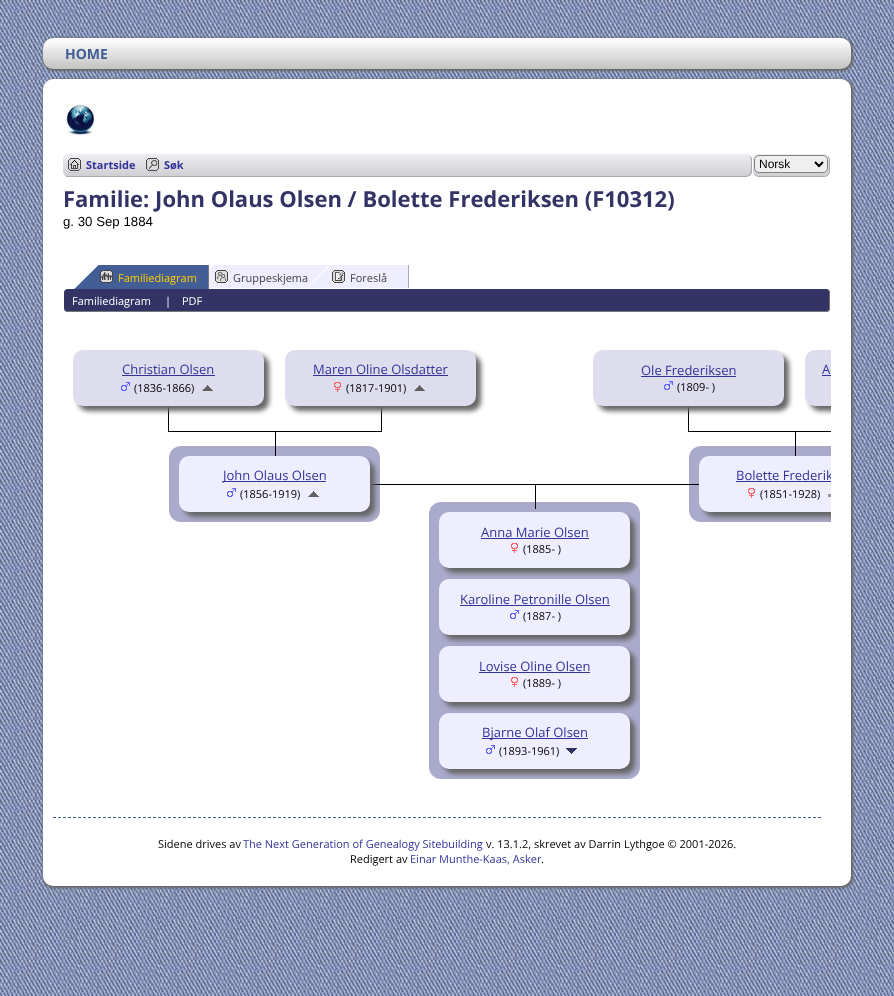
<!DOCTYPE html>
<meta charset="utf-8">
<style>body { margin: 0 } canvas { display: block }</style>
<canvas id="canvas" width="894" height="996"></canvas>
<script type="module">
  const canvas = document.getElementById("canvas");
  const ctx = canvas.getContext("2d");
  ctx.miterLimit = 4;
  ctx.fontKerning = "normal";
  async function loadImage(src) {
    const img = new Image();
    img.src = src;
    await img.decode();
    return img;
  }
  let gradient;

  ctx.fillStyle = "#ffffff";
  ctx.fillRect(0, 0, 894, 996);
  ctx.drawImage(await loadImage("img1.png"), 0, 0, 894, 996);
  ctx.fillStyle = "#666666";
  ctx.filter = "blur(1px)";
  ctx.beginPath();
  ctx.roundRect(43, 38, 810, 33, 11);
  ctx.fill();
  ctx.filter = "none";
  ctx.drawImage(await loadImage("img2.png"), 43, 38, 808, 31);
  ctx.font = "bold 14px Open Sans";
  ctx.fillStyle = "#435e95";
  ctx.fillText("HOME", 65, 59);
  ctx.fillStyle = "#666666";
  ctx.filter = "blur(1px)";
  ctx.beginPath();
  ctx.roundRect(43, 79, 810, 809, 11);
  ctx.fill();
  ctx.filter = "none";
  ctx.fillStyle = "#ffffff";
  ctx.beginPath();
  ctx.roundRect(43, 79, 808, 807, 10);
  ctx.fill();
  ctx.drawImage(await loadImage("img3.png"), 66, 104, 29, 32);
  ctx.fillStyle = "#e0e0f7";
  ctx.beginPath();
  ctx.roundRect(63, 154, 768, 23, 6);
  ctx.fill();
  ctx.save();
  ctx.beginPath();
  ctx.roundRect(63, 154, 768, 23, 6);
  ctx.clip();
  gradient = ctx.createLinearGradient(447, 154, 447, 176);
  gradient.addColorStop(0, "#eeeef3");
  gradient.addColorStop(1, "#ceced3");
  ctx.fillStyle = gradient;
  ctx.beginPath();
  ctx.roundRect(63, 154, 768, 22, [6, 6, 0, 0]);
  ctx.fill();
  ctx.restore();
  ctx.fillStyle = "#aaaaaa";
  ctx.fillRect(66, 176, 675, 1);
  ctx.drawImage(await loadImage("img4.png"), 68, 158, 13, 15);
  ctx.font = "bold 11px Open Sans";
  ctx.fillStyle = "#333399";
  ctx.fillText("Startside", 86, 169);
  ctx.drawImage(await loadImage("img5.png"), 146, 158, 13, 15);
  ctx.fillText("Søk", 164, 169);
  ctx.fillStyle = "#ffffff";
  ctx.fillRect(746, 154, 85, 23);
  ctx.save();
  ctx.beginPath();
  ctx.roundRect(741, 154, 11, 23, [0, 6, 6, 0]);
  ctx.clip();
  gradient = ctx.createLinearGradient(746, 154, 746, 176);
  gradient.addColorStop(0, "#eeeef3");
  gradient.addColorStop(1, "#ceced3");
  ctx.fillStyle = gradient;
  ctx.fillRect(741, 154, 11, 22);
  gradient = ctx.createLinearGradient(746, 176, 746, 198);
  gradient.addColorStop(0, "#eeeef3");
  gradient.addColorStop(1, "#ceced3");
  ctx.fillStyle = gradient;
  ctx.fillRect(741, 176, 11, 1);
  ctx.restore();
  ctx.fillStyle = "#aaaaaa";
  ctx.beginPath();
  ctx.moveTo(741, 154);
  ctx.bezierCurveTo(745, 154, 751, 153.5, 752, 159);
  ctx.lineTo(752, 172);
  ctx.bezierCurveTo(751, 177.5, 745, 177, 741, 177);
  ctx.closePath();
  ctx.moveTo(741, 154);
  ctx.lineTo(747, 154);
  ctx.bezierCurveTo(752, 155.5, 751, 162, 751, 165.5);
  ctx.bezierCurveTo(751, 175.5, 750.5, 176, 741, 176);
  ctx.closePath();
  ctx.fill("evenodd");
  ctx.fillStyle = "#e0e0f7";
  ctx.beginPath();
  ctx.roundRect(753, 154, 77, 23, 6);
  ctx.fill();
  ctx.save();
  ctx.beginPath();
  ctx.roundRect(753, 154, 77, 23, 6);
  ctx.clip();
  gradient = ctx.createLinearGradient(791, 154, 791, 176);
  gradient.addColorStop(0, "#eeeef3");
  gradient.addColorStop(1, "#ceced3");
  ctx.fillStyle = gradient;
  ctx.beginPath();
  ctx.roundRect(753, 154, 77, 22, [6, 6, 0, 0]);
  ctx.fill();
  ctx.restore();
  ctx.fillStyle = "#aaaaaa";
  ctx.beginPath();
  ctx.moveTo(759, 154);
  ctx.lineTo(824, 154);
  ctx.bezierCurveTo(827, 154, 830, 157, 830, 160);
  ctx.lineTo(830, 171);
  ctx.bezierCurveTo(830, 174, 827, 177, 824, 177);
  ctx.lineTo(759, 177);
  ctx.bezierCurveTo(756, 177, 753, 174, 753, 171);
  ctx.lineTo(753, 160);
  ctx.bezierCurveTo(753, 157, 756, 154, 759, 154);
  ctx.closePath();
  ctx.moveTo(759, 154);
  ctx.lineTo(824, 154);
  ctx.bezierCurveTo(827, 154, 829, 157, 829, 160);
  ctx.lineTo(829, 171);
  ctx.bezierCurveTo(829, 174, 827, 176, 824, 176);
  ctx.lineTo(759, 176);
  ctx.bezierCurveTo(756, 176, 753, 174, 753, 171);
  ctx.lineTo(753, 160);
  ctx.bezierCurveTo(753, 157, 756, 154, 759, 154);
  ctx.closePath();
  ctx.fill("evenodd");
  ctx.fillStyle = "#efefef";
  ctx.beginPath();
  ctx.roundRect(754.5, 155.5, 73, 17, 4.5);
  ctx.fill();
  ctx.strokeStyle = "#808080";
  ctx.stroke();
  ctx.beginPath();
  ctx.moveTo(815, 162);
  ctx.lineTo(819, 166);
  ctx.lineTo(823, 162);
  ctx.strokeStyle = "#000000";
  ctx.lineWidth = 2;
  ctx.stroke();
  ctx.font = "12px Liberation Sans";
  ctx.fillStyle = "#000000";
  ctx.fillText("Norsk", 759, 168);
  ctx.font = "bold 22px Open Sans";
  ctx.fillStyle = "#333366";
  ctx.fillText("Familie: John Olaus Olsen / Bolette Frederiksen (F10312)", 63, 207);
  ctx.font = "13.25px Liberation Sans";
  ctx.fillStyle = "#000000";
  ctx.fillText("g. 30 Sep 1884", 63, 226);
  ctx.drawImage(await loadImage("img6.png"), 74, 265, 134, 24);
  ctx.fillStyle = "#777777";
  ctx.fillRect(208, 265, 1, 24);
  ctx.drawImage(await loadImage("img7.png"), 100, 270, 13, 13);
  ctx.font = "11px Open Sans";
  ctx.fillStyle = "#ffcc00";
  ctx.fillText("Familiediagram", 118, 282);
  ctx.drawImage(await loadImage("img8.png"), 209, 265, 120, 23);
  ctx.drawImage(await loadImage("img9.png"), 215, 270, 13, 13);
  ctx.fillStyle = "#444444";
  ctx.fillText("Gruppeskjema", 233, 282);
  ctx.drawImage(await loadImage("img10.png"), 307, 265, 101, 23);
  ctx.fillStyle = "#aaaaaa";
  ctx.fillRect(408, 265, 1, 23);
  ctx.drawImage(await loadImage("img11.png"), 332, 270, 13, 13);
  ctx.fillStyle = "#444444";
  ctx.fillText("Foreslå", 350, 282);
  ctx.fillStyle = "#333366";
  ctx.beginPath();
  ctx.roundRect(64, 289, 766, 23, 4);
  ctx.fill();
  ctx.fillStyle = "#777777";
  ctx.beginPath();
  ctx.moveTo(68, 289);
  ctx.lineTo(826, 289);
  ctx.bezierCurveTo(828, 289, 830, 291, 830, 293);
  ctx.lineTo(830, 308);
  ctx.bezierCurveTo(830, 310, 828, 312, 826, 312);
  ctx.lineTo(68, 312);
  ctx.bezierCurveTo(66, 312, 64, 310, 64, 308);
  ctx.lineTo(64, 293);
  ctx.bezierCurveTo(64, 291, 66, 289, 68, 289);
  ctx.closePath();
  ctx.moveTo(68, 289);
  ctx.lineTo(826, 289);
  ctx.bezierCurveTo(828, 289, 829, 291, 829, 293);
  ctx.lineTo(829, 308);
  ctx.bezierCurveTo(829, 310, 828, 311, 826, 311);
  ctx.lineTo(68, 311);
  ctx.bezierCurveTo(66, 311, 64, 310, 64, 308);
  ctx.lineTo(64, 293);
  ctx.bezierCurveTo(64, 291, 66, 289, 68, 289);
  ctx.closePath();
  ctx.fill("evenodd");
  ctx.fillStyle = "#ffffff";
  ctx.fillText("Familiediagram", 72, 305);
  ctx.fillText("|", 165, 305);
  ctx.fillText("PDF", 182, 305);
  ctx.fillStyle = "#000000";
  ctx.fillRect(381, 406, 1, 26);
  ctx.fillRect(168, 431, 214, 1);
  ctx.fillRect(168, 406, 1, 26);
  ctx.fillStyle = "#666666";
  ctx.filter = "blur(2.5px)";
  ctx.beginPath();
  ctx.roundRect(78, 355, 191, 56, 10);
  ctx.fill();
  ctx.filter = "none";
  ctx.fillStyle = "#ddddee";
  ctx.beginPath();
  ctx.roundRect(73, 350, 191, 56, 10);
  ctx.fill();
  ctx.font = "13px Open Sans";
  ctx.fillStyle = "#333399";
  ctx.fillText("Christian Olsen", 122, 374);
  ctx.fillRect(122, 375, 93, 1);
  ctx.drawImage(await loadImage("img12.png"), 121, 382, 9, 9);
  ctx.font = "11px Open Sans";
  ctx.fillStyle = "#000000";
  ctx.fillText("(1836-1866)", 134, 392);
  ctx.drawImage(await loadImage("img13.png"), 202, 385, 11, 6);
  ctx.fillStyle = "#666666";
  ctx.filter = "blur(2.5px)";
  ctx.beginPath();
  ctx.roundRect(290, 355, 191, 56, 10);
  ctx.fill();
  ctx.filter = "none";
  ctx.fillStyle = "#ddddee";
  ctx.beginPath();
  ctx.roundRect(285, 350, 191, 56, 10);
  ctx.fill();
  ctx.font = "13px Open Sans";
  ctx.fillStyle = "#333399";
  ctx.fillText("Maren Oline Olsdatter", 313, 374);
  ctx.fillRect(313, 375, 135, 1);
  ctx.drawImage(await loadImage("img14.png"), 334, 382, 7, 10);
  ctx.font = "11px Open Sans";
  ctx.fillStyle = "#000000";
  ctx.fillText("(1817-1901)", 346, 392);
  ctx.drawImage(await loadImage("img13.png"), 414, 385, 11, 6);
  ctx.fillRect(688, 431, 143, 1);
  ctx.fillRect(688, 406, 1, 26);
  ctx.fillStyle = "#666666";
  ctx.filter = "blur(2.5px)";
  ctx.beginPath();
  ctx.roundRect(598, 355, 191, 56, 10);
  ctx.fill();
  ctx.filter = "none";
  ctx.fillStyle = "#ddddee";
  ctx.beginPath();
  ctx.roundRect(593, 350, 191, 56, 10);
  ctx.fill();
  ctx.font = "13px Open Sans";
  ctx.fillStyle = "#333399";
  ctx.fillText("Ole Frederiksen", 641, 375);
  ctx.fillRect(641, 376, 95, 1);
  ctx.drawImage(await loadImage("img12.png"), 664, 381, 9, 9);
  ctx.font = "11px Open Sans";
  ctx.fillStyle = "#000000";
  ctx.fillText("(1809- )", 677, 391);
  ctx.save();
  ctx.beginPath();
  ctx.rect(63, 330, 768, 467);
  ctx.clip();
  ctx.fillStyle = "#666666";
  ctx.filter = "blur(2.5px)";
  ctx.beginPath();
  ctx.roundRect(810, 355, 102, 56, 10);
  ctx.fill();
  ctx.filter = "none";
  ctx.restore();
  ctx.fillStyle = "#ddddee";
  ctx.beginPath();
  ctx.roundRect(805, 350, 26, 56, [10, 0, 0, 10]);
  ctx.fill();
  ctx.font = "13px Open Sans";
  ctx.fillStyle = "#333399";
  ctx.fillText("A", 822, 374);
  ctx.fillRect(822, 375, 9, 1);
  ctx.fillStyle = "#aaaacc";
  ctx.beginPath();
  ctx.roundRect(169, 446, 211, 76, 12);
  ctx.fill();
  ctx.fillStyle = "#000000";
  ctx.fillRect(275, 431, 1, 25);
  ctx.fillStyle = "#aaaacc";
  ctx.beginPath();
  ctx.roundRect(689, 446, 142, 76, [12, 0, 0, 12]);
  ctx.fill();
  ctx.fillStyle = "#000000";
  ctx.fillRect(795, 431, 1, 25);
  ctx.fillRect(370, 484, 330, 1);
  ctx.fillStyle = "#666666";
  ctx.filter = "blur(2.5px)";
  ctx.beginPath();
  ctx.roundRect(184, 461, 191, 56, 10);
  ctx.fill();
  ctx.filter = "none";
  ctx.fillStyle = "#eeeeff";
  ctx.beginPath();
  ctx.roundRect(179, 456, 191, 56, 10);
  ctx.fill();
  ctx.fillStyle = "#333399";
  ctx.fillRect(223, 481, 103, 1);
  ctx.fillText("John Olaus Olsen", 223, 480);
  ctx.drawImage(await loadImage("img15.png"), 227, 488, 9, 9);
  ctx.font = "11px Open Sans";
  ctx.fillStyle = "#000000";
  ctx.fillText("(1856-1919)", 240, 498);
  ctx.drawImage(await loadImage("img16.png"), 308, 491, 11, 6);
  ctx.save();
  ctx.beginPath();
  ctx.rect(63, 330, 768, 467);
  ctx.clip();
  ctx.fillStyle = "#666666";
  ctx.filter = "blur(2.5px)";
  ctx.beginPath();
  ctx.roundRect(704, 461, 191, 56, 10);
  ctx.fill();
  ctx.filter = "none";
  ctx.restore();
  ctx.fillStyle = "#eeeeff";
  ctx.beginPath();
  ctx.roundRect(699, 456, 132, 56, [10, 0, 0, 10]);
  ctx.fill();
  ctx.save();
  ctx.beginPath();
  ctx.rect(63, 330, 768, 467);
  ctx.clip();
  ctx.font = "13px Open Sans";
  ctx.fillStyle = "#333399";
  ctx.fillText("Bolette Frederik", 736, 480);
  ctx.restore();
  ctx.fillStyle = "#333399";
  ctx.fillRect(736, 481, 95, 1);
  ctx.drawImage(await loadImage("img17.png"), 748, 488, 7, 10);
  ctx.fillStyle = "#000000";
  ctx.fillText("(1851-1928)", 760, 498);
  ctx.fillStyle = "#959595";
  ctx.fillRect(828, 494, 3, 3);
  ctx.fillStyle = "#aaaacc";
  ctx.beginPath();
  ctx.roundRect(429, 502, 211, 277, 12);
  ctx.fill();
  ctx.fillStyle = "#000000";
  ctx.fillRect(535, 484, 1, 25);
  ctx.fillStyle = "#666666";
  ctx.filter = "blur(2.5px)";
  ctx.beginPath();
  ctx.roundRect(444, 517, 191, 56, 10);
  ctx.fill();
  ctx.filter = "none";
  ctx.fillStyle = "#eeeeff";
  ctx.beginPath();
  ctx.roundRect(439, 512, 191, 56, 10);
  ctx.fill();
  ctx.font = "13px Open Sans";
  ctx.fillStyle = "#333399";
  ctx.fillText("Anna Marie Olsen", 481, 537);
  ctx.fillRect(481, 538, 108, 1);
  ctx.drawImage(await loadImage("img17.png"), 511, 543, 7, 10);
  ctx.font = "11px Open Sans";
  ctx.fillStyle = "#000000";
  ctx.fillText("(1885- )", 523, 553);
  ctx.fillStyle = "#666666";
  ctx.filter = "blur(2.5px)";
  ctx.beginPath();
  ctx.roundRect(444, 584, 191, 56, 10);
  ctx.fill();
  ctx.filter = "none";
  ctx.fillStyle = "#eeeeff";
  ctx.beginPath();
  ctx.roundRect(439, 579, 191, 56, 10);
  ctx.fill();
  ctx.font = "13px Open Sans";
  ctx.fillStyle = "#333399";
  ctx.fillText("Karoline Petronille Olsen", 460, 604);
  ctx.fillRect(460, 605, 150, 1);
  ctx.drawImage(await loadImage("img15.png"), 510, 610, 9, 9);
  ctx.font = "11px Open Sans";
  ctx.fillStyle = "#000000";
  ctx.fillText("(1887- )", 523, 620);
  ctx.fillStyle = "#666666";
  ctx.filter = "blur(2.5px)";
  ctx.beginPath();
  ctx.roundRect(444, 651, 191, 56, 10);
  ctx.fill();
  ctx.filter = "none";
  ctx.fillStyle = "#eeeeff";
  ctx.beginPath();
  ctx.roundRect(439, 646, 191, 56, 10);
  ctx.fill();
  ctx.font = "13px Open Sans";
  ctx.fillStyle = "#333399";
  ctx.fillText("Lovise Oline Olsen", 479, 671);
  ctx.fillRect(479, 672, 111, 1);
  ctx.drawImage(await loadImage("img17.png"), 511, 677, 7, 10);
  ctx.font = "11px Open Sans";
  ctx.fillStyle = "#000000";
  ctx.fillText("(1889- )", 523, 687);
  ctx.fillStyle = "#666666";
  ctx.filter = "blur(2.5px)";
  ctx.beginPath();
  ctx.roundRect(444, 718, 191, 56, 10);
  ctx.fill();
  ctx.filter = "none";
  ctx.fillStyle = "#eeeeff";
  ctx.beginPath();
  ctx.roundRect(439, 713, 191, 56, 10);
  ctx.fill();
  ctx.fillStyle = "#333399";
  ctx.fillRect(482, 738, 106, 1);
  ctx.font = "13px Open Sans";
  ctx.fillText("Bjarne Olaf Olsen", 482, 737);
  ctx.drawImage(await loadImage("img15.png"), 486, 745, 9, 9);
  ctx.font = "11px Open Sans";
  ctx.fillStyle = "#000000";
  ctx.fillText("(1893-1961)", 499, 755);
  ctx.drawImage(await loadImage("img18.png"), 566, 748, 11, 6);
  ctx.beginPath();
  ctx.moveTo(53, 817.5);
  ctx.lineTo(821, 817.5);
  ctx.strokeStyle = "#435e95";
  ctx.lineWidth = 1;
  ctx.setLineDash([3, 2]);
  ctx.stroke();
  ctx.fillText("Sidene drives av", 158, 848);
  ctx.fillStyle = "#333399";
  ctx.fillText("The Next Generation of Genealogy Sitebuilding", 243, 848);
  ctx.fillStyle = "#000000";
  ctx.fillText("v. 13.1.2, skrevet av Darrin Lythgoe © 2001-2026.", 486, 848);
  ctx.fillText("Redigert av", 350, 863);
  ctx.fillStyle = "#333399";
  ctx.fillText("Einar Munthe-Kaas, Asker", 410, 863);
  ctx.fillStyle = "#000000";
  ctx.fillText(".", 541, 863);
</script>
